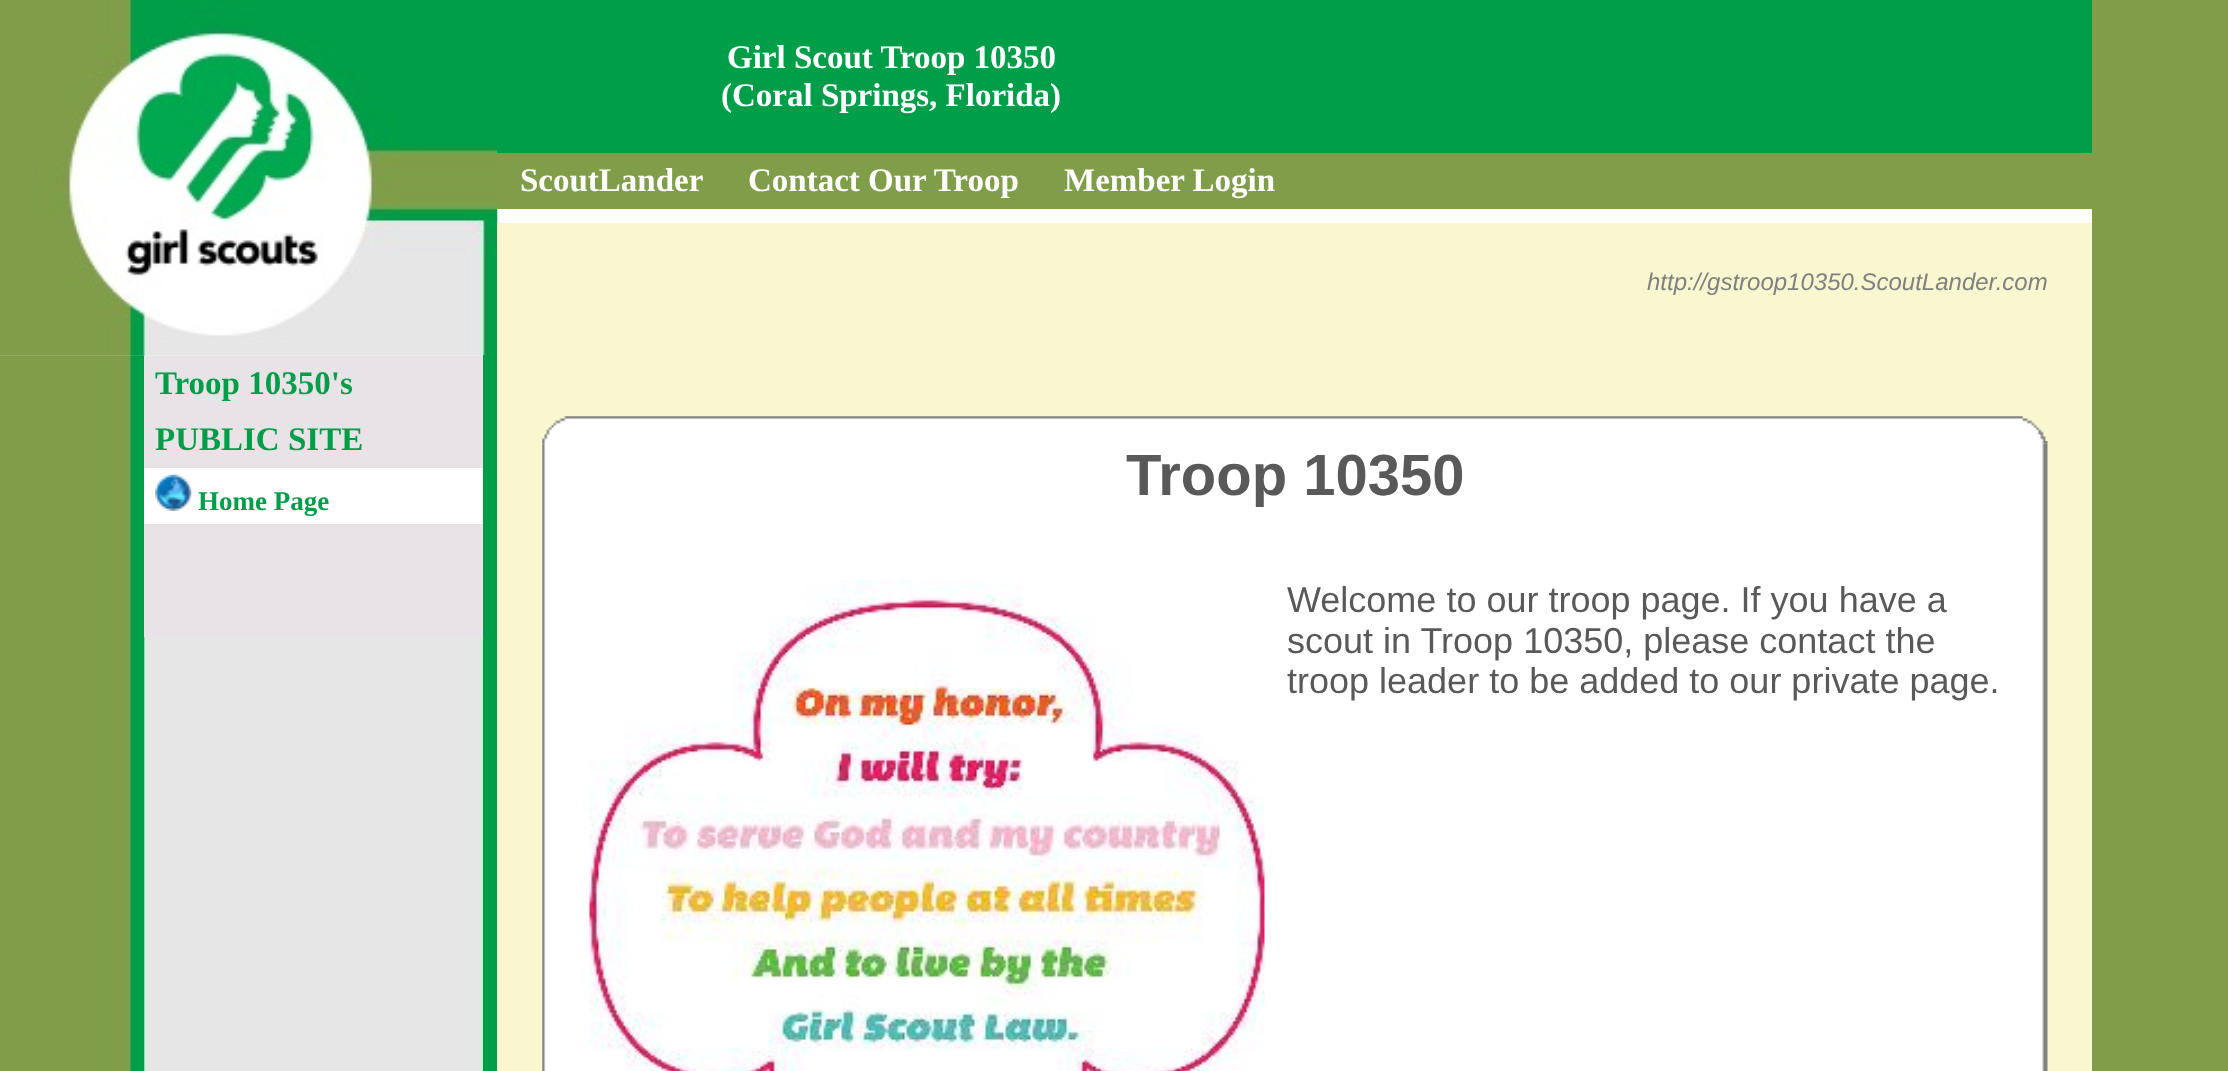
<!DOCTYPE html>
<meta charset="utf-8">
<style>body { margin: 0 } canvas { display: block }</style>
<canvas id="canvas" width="2228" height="1071"></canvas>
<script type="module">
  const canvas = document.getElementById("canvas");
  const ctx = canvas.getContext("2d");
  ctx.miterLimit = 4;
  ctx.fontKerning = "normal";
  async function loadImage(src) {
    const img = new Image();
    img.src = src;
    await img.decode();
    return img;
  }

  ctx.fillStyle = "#ffffff";
  ctx.fillRect(0, 0, 2228, 1071);
  ctx.drawImage(await loadImage("img1.png"), 0, 0, 498, 356);
  ctx.drawImage(await loadImage("img2.png"), 0, 355, 483, 716);
  ctx.drawImage(await loadImage("img3.png"), 0, 355, 144, 716);
  ctx.fillStyle = "#e7e3e7";
  ctx.fillRect(144, 356, 339, 112);
  ctx.font = "bold 33px Liberation Serif";
  ctx.fillStyle = "#009e49";
  ctx.fillText("Troop 10350's", 155, 394);
  ctx.fillText("PUBLIC SITE", 155, 450);
  ctx.fillStyle = "#ffffff";
  ctx.fillRect(144, 468, 339, 56);
  ctx.drawImage(await loadImage("img4.png"), 155, 474, 37, 37);
  ctx.font = "bold 27px Liberation Serif";
  ctx.fillStyle = "#009e49";
  ctx.fillText("Home Page", 198, 510);
  ctx.fillStyle = "#e7e3e7";
  ctx.fillRect(144, 524, 339, 113);
  ctx.fillStyle = "#009e49";
  ctx.fillRect(483, 355, 14, 716);
  ctx.fillRect(497, 0, 1595, 153);
  ctx.font = "bold 33px Liberation Serif";
  ctx.fillStyle = "#ffffff";
  ctx.fillText("Girl Scout Troop 10350", 727, 68);
  ctx.fillText("(Coral Springs, Florida)", 721, 106);
  ctx.fillStyle = "#809e49";
  ctx.fillRect(497, 153, 1595, 56);
  ctx.fillStyle = "#ffffff";
  ctx.fillText("ScoutLander", 520, 191);
  ctx.fillText("Contact Our Troop", 748, 191);
  ctx.fillText("Member Login", 1064, 191);
  ctx.fillStyle = "#f8f7cf";
  ctx.fillRect(497, 223, 1595, 848);
  ctx.font = "italic 24px Liberation Sans";
  ctx.fillStyle = "#818181";
  ctx.fillText("http://gstroop10350.ScoutLander.com", 1647, 290);
  ctx.drawImage(await loadImage("img5.png"), 542, 416, 25, 25);
  ctx.drawImage(await loadImage("img6.png"), 567, 416, 1456, 25);
  ctx.drawImage(await loadImage("img7.png"), 2022, 418, 24, 23);
  ctx.drawImage(await loadImage("img8.png"), 542, 441, 25, 3);
  ctx.fillStyle = "#ffffff";
  ctx.fillRect(567, 441, 1456, 630);
  ctx.drawImage(await loadImage("img9.png"), 2023, 441, 25, 3);
  ctx.drawImage(await loadImage("img10.png"), 542, 443, 25, 115);
  ctx.font = "bold 58px Liberation Sans";
  ctx.fillStyle = "#595959";
  ctx.fillText("Troop 10350", 1126, 495);
  ctx.drawImage(await loadImage("img11.png"), 2023, 443, 25, 115);
  ctx.drawImage(await loadImage("img12.png"), 542, 558, 25, 513);
  ctx.drawImage(await loadImage("img13.png"), 589, 580, 676, 491);
  ctx.font = "36px Liberation Sans";
  ctx.fillText("Welcome to our troop page. If you have a", 1287, 612);
  ctx.fillText("scout in Troop 10350, please contact the", 1287, 653);
  ctx.fillText("troop leader to be added to our private page.", 1287, 693);
  ctx.drawImage(await loadImage("img14.png"), 2023, 558, 25, 513);
  ctx.fillStyle = "#809d49";
  ctx.fillRect(2092, 0, 136, 1071);
</script>
